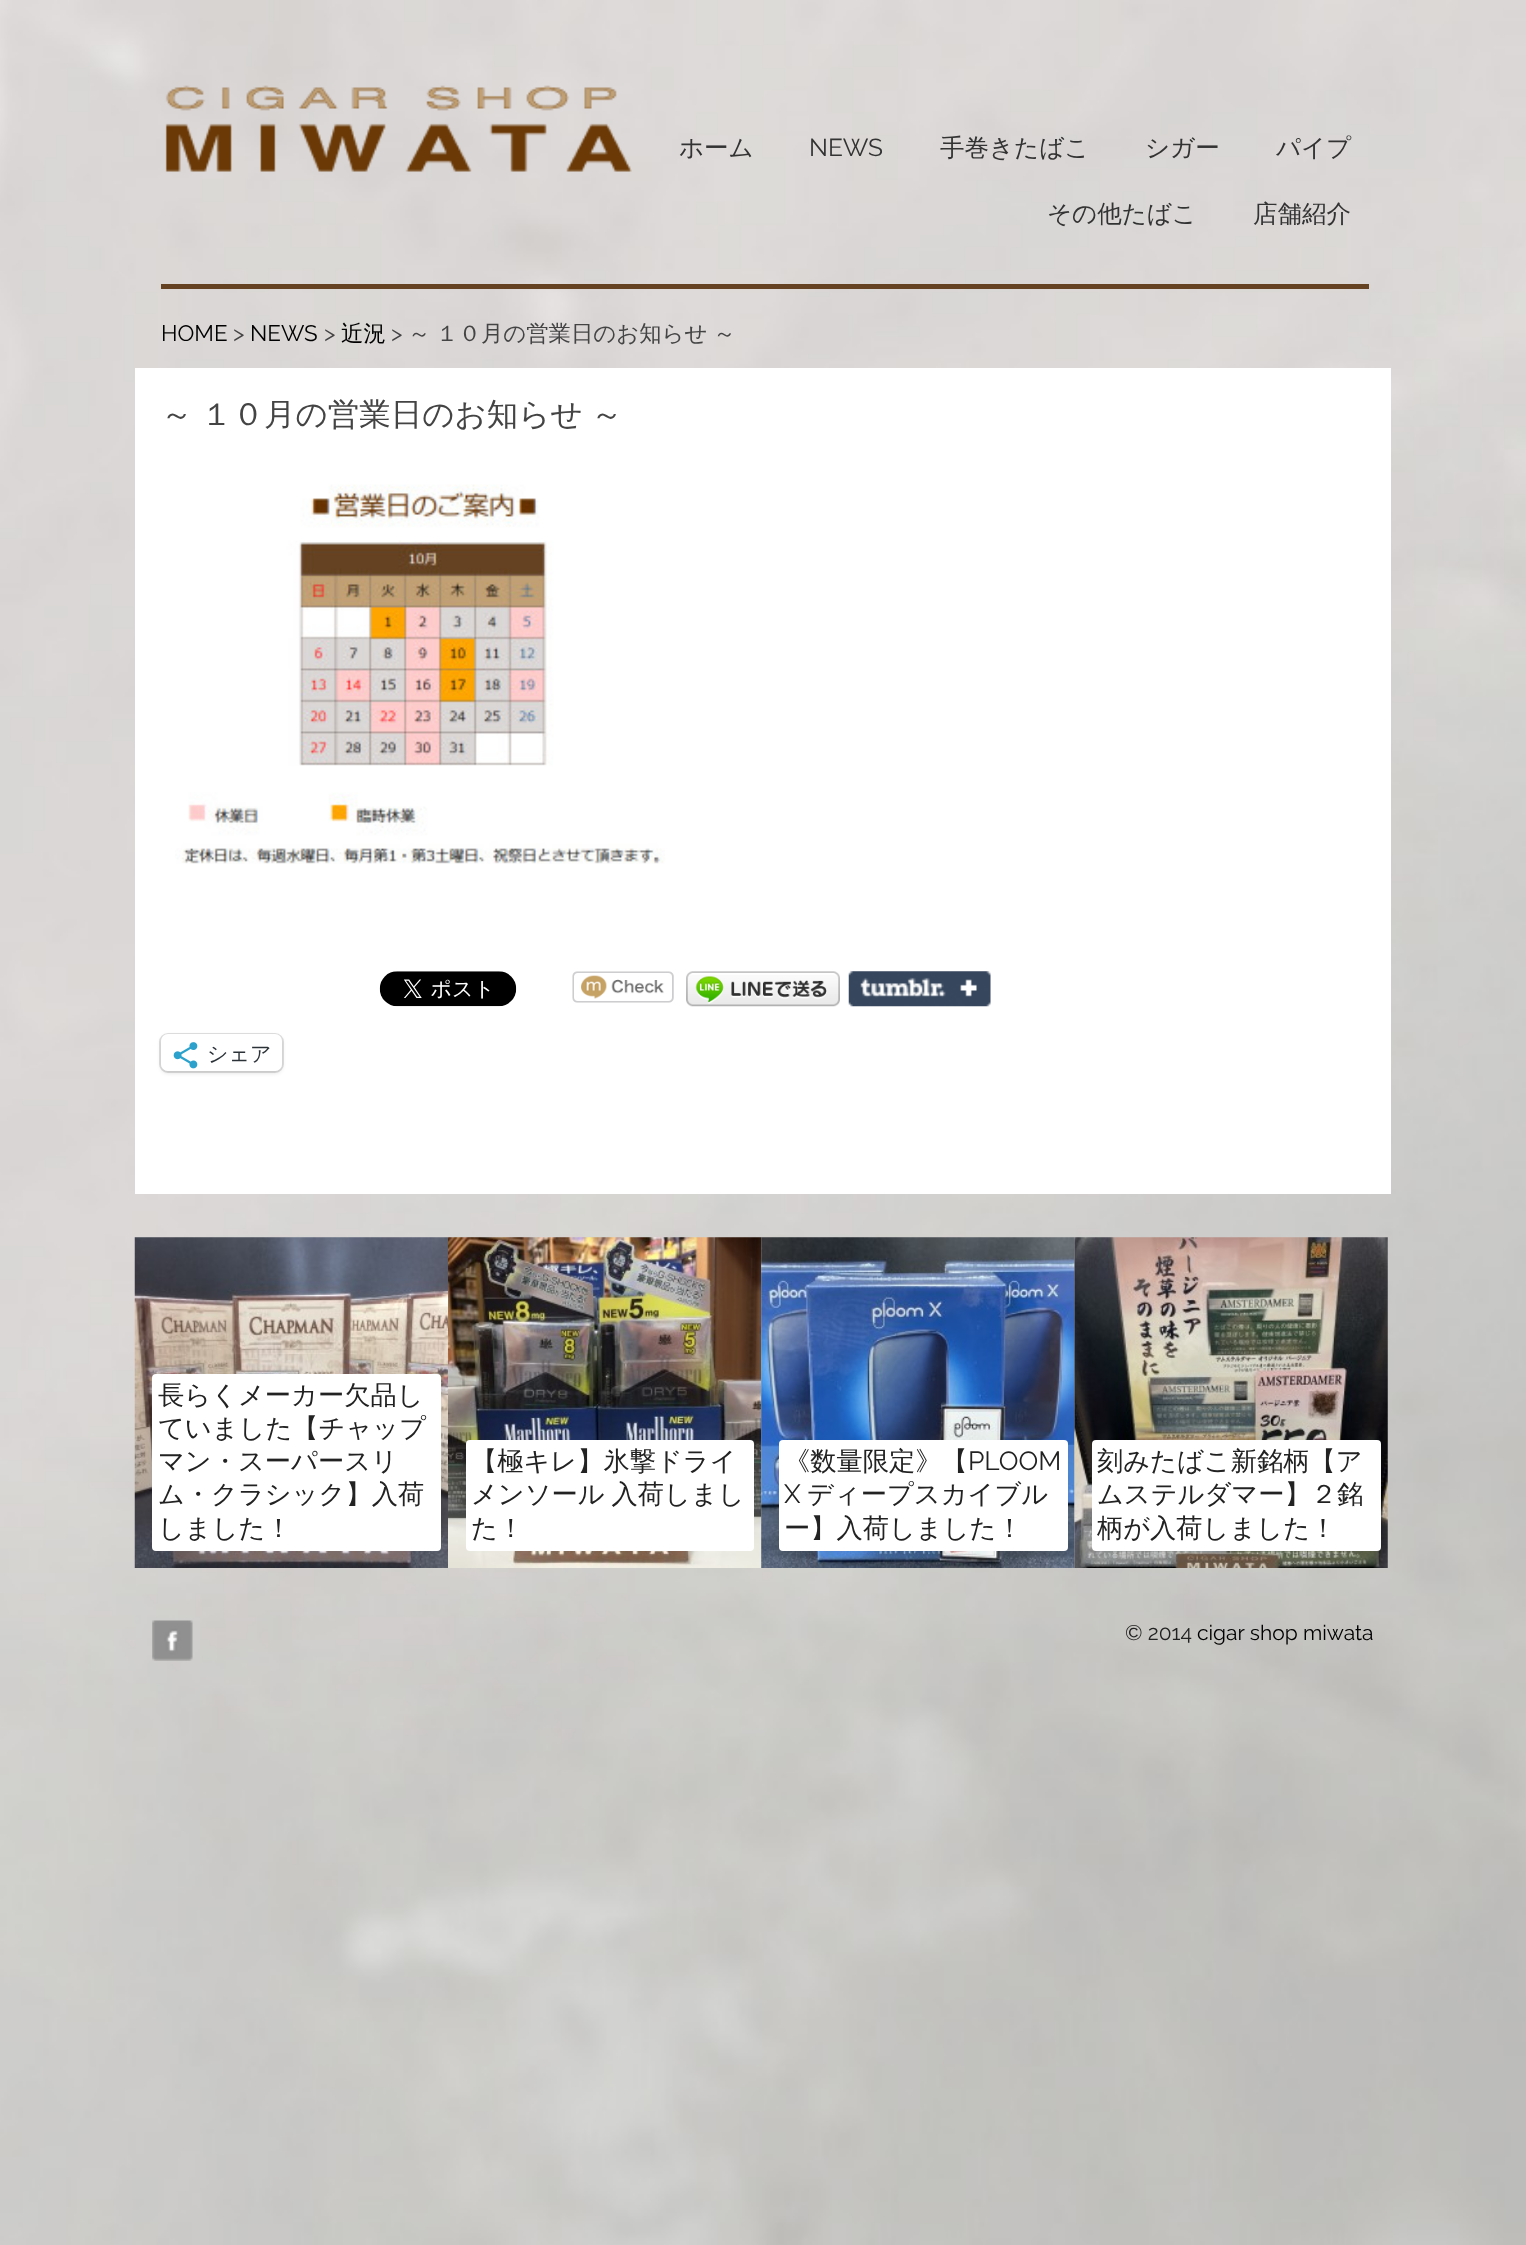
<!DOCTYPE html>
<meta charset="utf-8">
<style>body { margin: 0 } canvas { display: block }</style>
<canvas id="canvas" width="1526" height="2245"></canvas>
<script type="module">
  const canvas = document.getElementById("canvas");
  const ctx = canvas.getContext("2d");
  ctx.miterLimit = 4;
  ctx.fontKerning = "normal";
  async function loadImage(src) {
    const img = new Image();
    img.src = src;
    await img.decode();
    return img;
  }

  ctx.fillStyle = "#ffffff";
  ctx.fillRect(0, 0, 1526, 2245);
  ctx.drawImage(await loadImage("img1.png"), 0, 0, 1526, 2245);
  ctx.drawImage(await loadImage("img2.png"), 165, 85, 467, 87);
  ctx.font = "500 24.5px WenQuanYi Zen Hei";
  ctx.fillStyle = "#333333";
  ctx.fillText("ホーム", 679, 156);
  ctx.font = "100 24.5px Raleway";
  ctx.fillText("NEWS", 809, 156);
  ctx.font = "500 24.5px WenQuanYi Zen Hei";
  ctx.fillText("手巻きたばこ", 940, 156);
  ctx.fillText("シガー", 1145, 156);
  ctx.fillText("パイプ", 1276, 156);
  ctx.fillText("その他たばこ", 1047, 222);
  ctx.fillText("店舗紹介", 1253, 222);
  ctx.fillStyle = "#654322";
  ctx.fillRect(161, 284, 1208, 5);
  ctx.font = "100 22.4px Raleway";
  ctx.fillStyle = "#000000";
  ctx.fillText("HOME", 161, 341);
  ctx.fillStyle = "#444444";
  ctx.fillText(">", 233, 341);
  ctx.fillStyle = "#000000";
  ctx.fillText("NEWS", 250, 341);
  ctx.fillStyle = "#444444";
  ctx.fillText(">", 324, 341);
  ctx.font = "500 22.4px WenQuanYi Zen Hei";
  ctx.fillStyle = "#000000";
  ctx.fillText("近況", 341, 341);
  ctx.font = "100 22.4px Raleway";
  ctx.fillStyle = "#444444";
  ctx.fillText(">", 391, 341);
  ctx.wordSpacing = "-1px";
  ctx.font = "500 22.4px WenQuanYi Zen Hei";
  ctx.fillText("～ １０月の営業日のお知らせ ～", 408, 341);
  ctx.fillStyle = "#ffffff";
  ctx.fillRect(135, 368, 1256, 826);
  ctx.font = "500 31.5px WenQuanYi Zen Hei";
  ctx.fillStyle = "#444444";
  ctx.fillText("～ １０月の営業日のお知らせ ～", 161, 425);
  ctx.drawImage(await loadImage("img3.png"), 175, 484, 490, 380);
  ctx.drawImage(await loadImage("img4.png"), 379, 971, 138, 36);
  ctx.drawImage(await loadImage("img5.png"), 572, 971, 102, 32);
  ctx.drawImage(await loadImage("img6.png"), 686, 971, 154, 36);
  ctx.drawImage(await loadImage("img7.png"), 848, 971, 143, 36);
  ctx.beginPath();
  ctx.roundRect(160, 1034, 123, 38, 8);
  ctx.strokeStyle = "#e0e0e0";
  ctx.lineWidth = 2;
  ctx.stroke();
  ctx.fillStyle = "rgba(0, 0, 0, 0.12)";
  ctx.filter = "blur(2px)";
  ctx.beginPath();
  ctx.roundRect(161, 1036, 121, 37, 7);
  ctx.fill();
  ctx.filter = "none";
  ctx.fillStyle = "#ffffff";
  ctx.beginPath();
  ctx.roundRect(161, 1034, 121, 37, 7);
  ctx.fill();
  ctx.drawImage(await loadImage("img8.png"), 173, 1042, 25, 27);
  ctx.wordSpacing = "0px";
  ctx.font = "500 21px WenQuanYi Zen Hei";
  ctx.fillStyle = "#2c3338";
  ctx.fillText("シェア", 207, 1061);
  ctx.drawImage(await loadImage("img9.png"), 134, 1237, 314, 331);
  ctx.fillStyle = "#ffffff";
  ctx.beginPath();
  ctx.roundRect(152, 1374, 289, 177, 4);
  ctx.fill();
  ctx.font = "500 26.25px WenQuanYi Zen Hei";
  ctx.fillStyle = "#222222";
  ctx.fillText("長らくメーカー欠品し", 158, 1404);
  ctx.fillText("ていました【チャップ", 158, 1437);
  ctx.fillText("マン・スーパースリ", 158, 1470);
  ctx.fillText("ム・クラシック】入荷", 158, 1503);
  ctx.fillText("しました！", 158, 1537);
  ctx.drawImage(await loadImage("img10.png"), 448, 1237, 314, 331);
  ctx.fillStyle = "#ffffff";
  ctx.beginPath();
  ctx.roundRect(466, 1440, 288, 111, 4);
  ctx.fill();
  ctx.fillStyle = "#222222";
  ctx.fillText("【極キレ】氷撃ドライ", 471, 1470);
  ctx.wordSpacing = "-1px";
  ctx.fillText("メンソール 入荷しまし", 471, 1503);
  ctx.wordSpacing = "0px";
  ctx.fillText("た！", 471, 1537);
  ctx.drawImage(await loadImage("img11.png"), 761, 1237, 314, 331);
  ctx.fillStyle = "#ffffff";
  ctx.beginPath();
  ctx.roundRect(779, 1440, 289, 111, 4);
  ctx.fill();
  ctx.fillStyle = "#222222";
  ctx.fillText("《数量限定》【", 784, 1470);
  ctx.font = "100 26.25px Raleway";
  ctx.fillText("PLOOM", 968, 1470);
  ctx.fillText("X", 784, 1503);
  ctx.font = "500 26.25px WenQuanYi Zen Hei";
  ctx.fillText("ディープスカイブル", 807, 1503);
  ctx.fillText("ー】入荷しました！", 784, 1537);
  ctx.drawImage(await loadImage("img12.png"), 1074, 1237, 314, 331);
  ctx.fillStyle = "#ffffff";
  ctx.beginPath();
  ctx.roundRect(1092, 1440, 289, 111, 4);
  ctx.fill();
  ctx.fillStyle = "#222222";
  ctx.fillText("刻みたばこ新銘柄【ア", 1097, 1470);
  ctx.fillText("ムステルダマー】２銘", 1097, 1503);
  ctx.fillText("柄が入荷しました！", 1097, 1537);
  ctx.drawImage(await loadImage("img13.png"), 152, 1620, 41, 41);
  ctx.font = "100 21px Raleway";
  ctx.fillText("© 2014", 1125, 1640);
  ctx.fillStyle = "#000000";
  ctx.fillText("cigar shop miwata", 1197, 1640);
</script>
